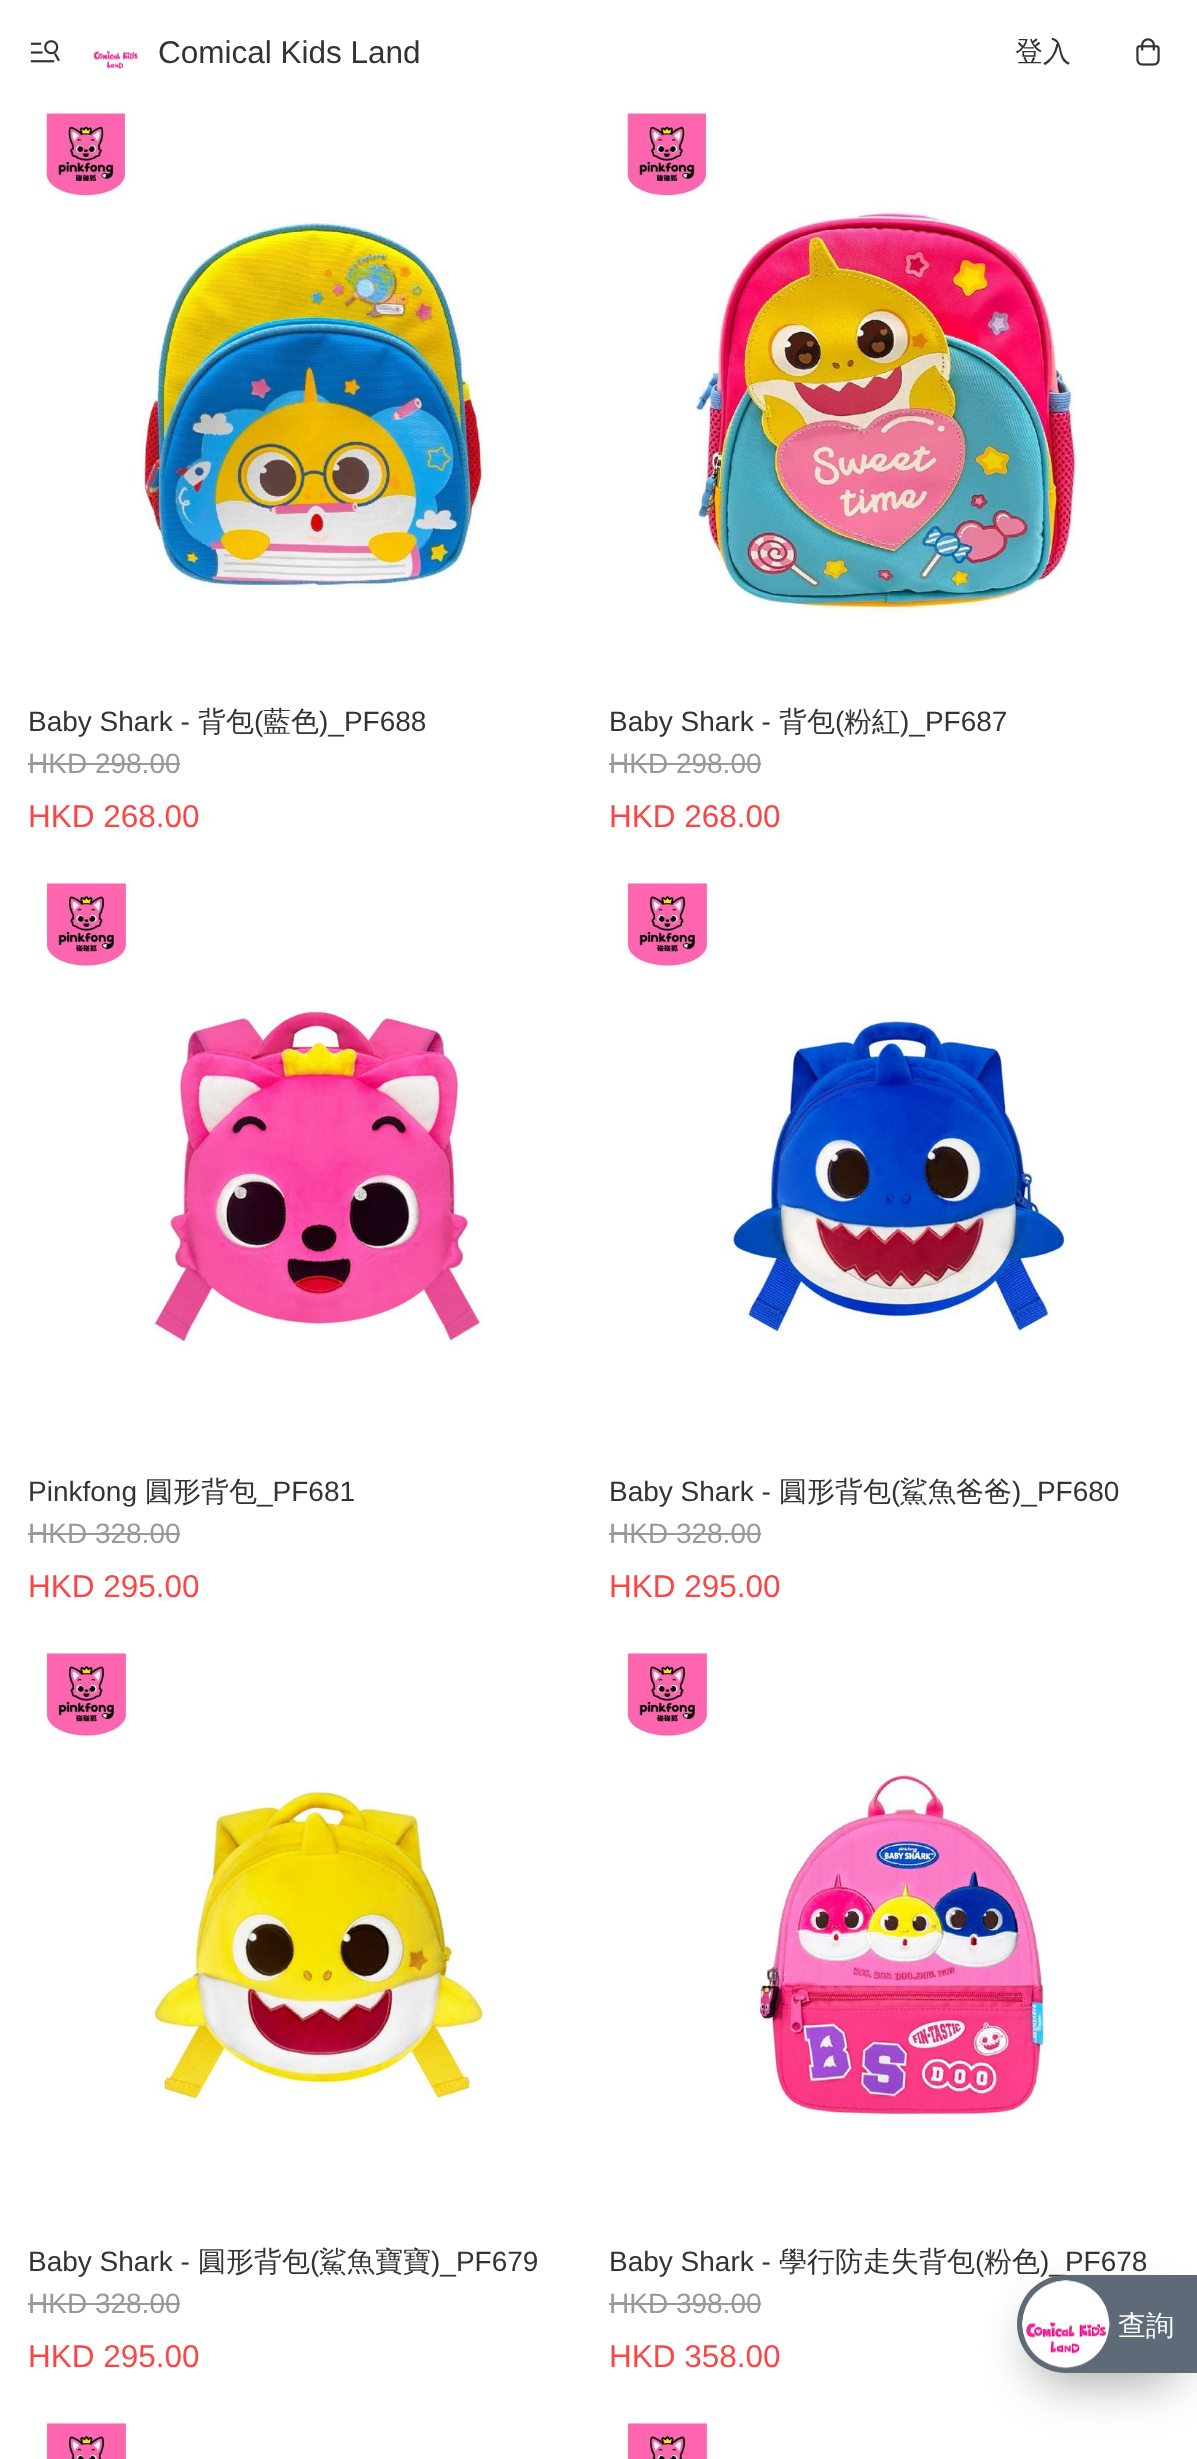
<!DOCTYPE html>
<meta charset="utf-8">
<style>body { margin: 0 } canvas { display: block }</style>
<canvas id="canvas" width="1197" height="2459"></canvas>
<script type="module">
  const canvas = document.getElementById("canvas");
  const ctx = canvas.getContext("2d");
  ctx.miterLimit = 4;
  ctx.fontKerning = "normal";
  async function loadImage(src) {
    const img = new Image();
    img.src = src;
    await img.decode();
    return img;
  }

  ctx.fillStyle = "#ffffff";
  ctx.fillRect(0, 0, 1197, 2459);
  ctx.drawImage(await loadImage("img1.png"), 30, 40, 30, 23);
  ctx.drawImage(await loadImage("img2.png"), 93, 50, 45, 19);
  ctx.font = "31.5px Liberation Sans";
  ctx.fillStyle = "#333333";
  ctx.fillText("Comical Kids Land", 158, 63);
  ctx.font = "500 28px WenQuanYi Zen Hei";
  ctx.fillText("登入", 1015, 61);
  ctx.drawImage(await loadImage("img3.png"), 1136, 38, 24, 28);
  ctx.drawImage(await loadImage("img4.png"), 39, 113, 445, 479);
  ctx.font = "28px Liberation Sans";
  ctx.fillText("Baby Shark -", 28, 731);
  ctx.font = "500 28px WenQuanYi Zen Hei";
  ctx.fillText("背包", 198, 731);
  ctx.font = "28px Liberation Sans";
  ctx.fillText("(", 254, 731);
  ctx.font = "500 28px WenQuanYi Zen Hei";
  ctx.fillText("藍色", 263, 731);
  ctx.font = "28px Liberation Sans";
  ctx.fillText(")_PF688", 319, 731);
  ctx.fillStyle = "#999999";
  ctx.fillText("HKD 298.00", 28, 773);
  ctx.fillRect(28, 763, 152, 2);
  ctx.font = "31.5px Liberation Sans";
  ctx.fillStyle = "#fa4646";
  ctx.fillText("HKD 268.00", 28, 827);
  ctx.drawImage(await loadImage("img5.png"), 620, 113, 456, 502);
  ctx.font = "28px Liberation Sans";
  ctx.fillStyle = "#333333";
  ctx.fillText("Baby Shark -", 609, 731);
  ctx.font = "500 28px WenQuanYi Zen Hei";
  ctx.fillText("背包", 779, 731);
  ctx.font = "28px Liberation Sans";
  ctx.fillText("(", 835, 731);
  ctx.font = "500 28px WenQuanYi Zen Hei";
  ctx.fillText("粉紅", 844, 731);
  ctx.font = "28px Liberation Sans";
  ctx.fillText(")_PF687", 900, 731);
  ctx.fillStyle = "#999999";
  ctx.fillText("HKD 298.00", 609, 773);
  ctx.fillRect(609, 763, 152, 2);
  ctx.font = "31.5px Liberation Sans";
  ctx.fillStyle = "#fa4646";
  ctx.fillText("HKD 268.00", 609, 827);
  ctx.drawImage(await loadImage("img6.png"), 41, 883, 443, 467);
  ctx.font = "28px Liberation Sans";
  ctx.fillStyle = "#333333";
  ctx.fillText("Pinkfong", 28, 1501);
  ctx.font = "500 28px WenQuanYi Zen Hei";
  ctx.fillText("圓形背包", 145, 1501);
  ctx.font = "28px Liberation Sans";
  ctx.fillText("_PF681", 257, 1501);
  ctx.fillStyle = "#999999";
  ctx.fillText("HKD 328.00", 28, 1543);
  ctx.fillRect(28, 1533, 152, 2);
  ctx.font = "31.5px Liberation Sans";
  ctx.fillStyle = "#fa4646";
  ctx.fillText("HKD 295.00", 28, 1597);
  ctx.drawImage(await loadImage("img7.png"), 622, 883, 443, 455);
  ctx.font = "28px Liberation Sans";
  ctx.fillStyle = "#333333";
  ctx.fillText("Baby Shark -", 609, 1501);
  ctx.font = "500 28px WenQuanYi Zen Hei";
  ctx.fillText("圓形背包", 779, 1501);
  ctx.font = "28px Liberation Sans";
  ctx.fillText("(", 891, 1501);
  ctx.font = "500 28px WenQuanYi Zen Hei";
  ctx.fillText("鯊魚爸爸", 900, 1501);
  ctx.font = "28px Liberation Sans";
  ctx.fillText(")_PF680", 1012, 1501);
  ctx.fillStyle = "#999999";
  ctx.fillText("HKD 328.00", 609, 1543);
  ctx.fillRect(609, 1533, 152, 2);
  ctx.font = "31.5px Liberation Sans";
  ctx.fillStyle = "#fa4646";
  ctx.fillText("HKD 295.00", 609, 1597);
  ctx.drawImage(await loadImage("img8.png"), 41, 1653, 443, 456);
  ctx.font = "28px Liberation Sans";
  ctx.fillStyle = "#333333";
  ctx.fillText("Baby Shark -", 28, 2271);
  ctx.font = "500 28px WenQuanYi Zen Hei";
  ctx.fillText("圓形背包", 198, 2271);
  ctx.font = "28px Liberation Sans";
  ctx.fillText("(", 310, 2271);
  ctx.font = "500 28px WenQuanYi Zen Hei";
  ctx.fillText("鯊魚寶寶", 319, 2271);
  ctx.font = "28px Liberation Sans";
  ctx.fillText(")_PF679", 431, 2271);
  ctx.fillStyle = "#999999";
  ctx.fillText("HKD 328.00", 28, 2313);
  ctx.fillRect(28, 2303, 152, 2);
  ctx.font = "31.5px Liberation Sans";
  ctx.fillStyle = "#fa4646";
  ctx.fillText("HKD 295.00", 28, 2367);
  ctx.drawImage(await loadImage("img9.png"), 622, 1653, 431, 467);
  ctx.font = "28px Liberation Sans";
  ctx.fillStyle = "#333333";
  ctx.fillText("Baby Shark -", 609, 2271);
  ctx.font = "500 28px WenQuanYi Zen Hei";
  ctx.fillText("學行防走失背包", 779, 2271);
  ctx.font = "28px Liberation Sans";
  ctx.fillText("(", 975, 2271);
  ctx.font = "500 28px WenQuanYi Zen Hei";
  ctx.fillText("粉色", 984, 2271);
  ctx.font = "28px Liberation Sans";
  ctx.fillText(")_PF678", 1040, 2271);
  ctx.fillStyle = "#999999";
  ctx.fillText("HKD 398.00", 609, 2313);
  ctx.fillRect(609, 2303, 152, 2);
  ctx.font = "31.5px Liberation Sans";
  ctx.fillStyle = "#fa4646";
  ctx.fillText("HKD 358.00", 609, 2367);
  ctx.drawImage(await loadImage("img10.png"), 44, 2423, 83, 36);
  ctx.drawImage(await loadImage("img10.png"), 625, 2423, 83, 36);
  ctx.fillStyle = "rgba(0, 0, 0, 0.3)";
  ctx.filter = "blur(26px)";
  ctx.beginPath();
  ctx.roundRect(1034, 2319, 146, 63, 31.5);
  ctx.fill();
  ctx.filter = "none";
  ctx.fillStyle = "rgba(0, 0, 0, 0.05)";
  ctx.filter = "blur(17.5px)";
  ctx.beginPath();
  ctx.roundRect(1017, 2284, 180, 98, 49);
  ctx.fill();
  ctx.filter = "none";
  ctx.fillStyle = "#5f6a78";
  ctx.beginPath();
  ctx.roundRect(1017, 2275, 180, 98, [49, 0, 0, 49]);
  ctx.fill();
  ctx.drawImage(await loadImage("img11.png"), 1022, 2280, 88, 89);
  ctx.font = "500 28px WenQuanYi Zen Hei";
  ctx.fillStyle = "#ffffff";
  ctx.fillText("查詢", 1118, 2335);
</script>
